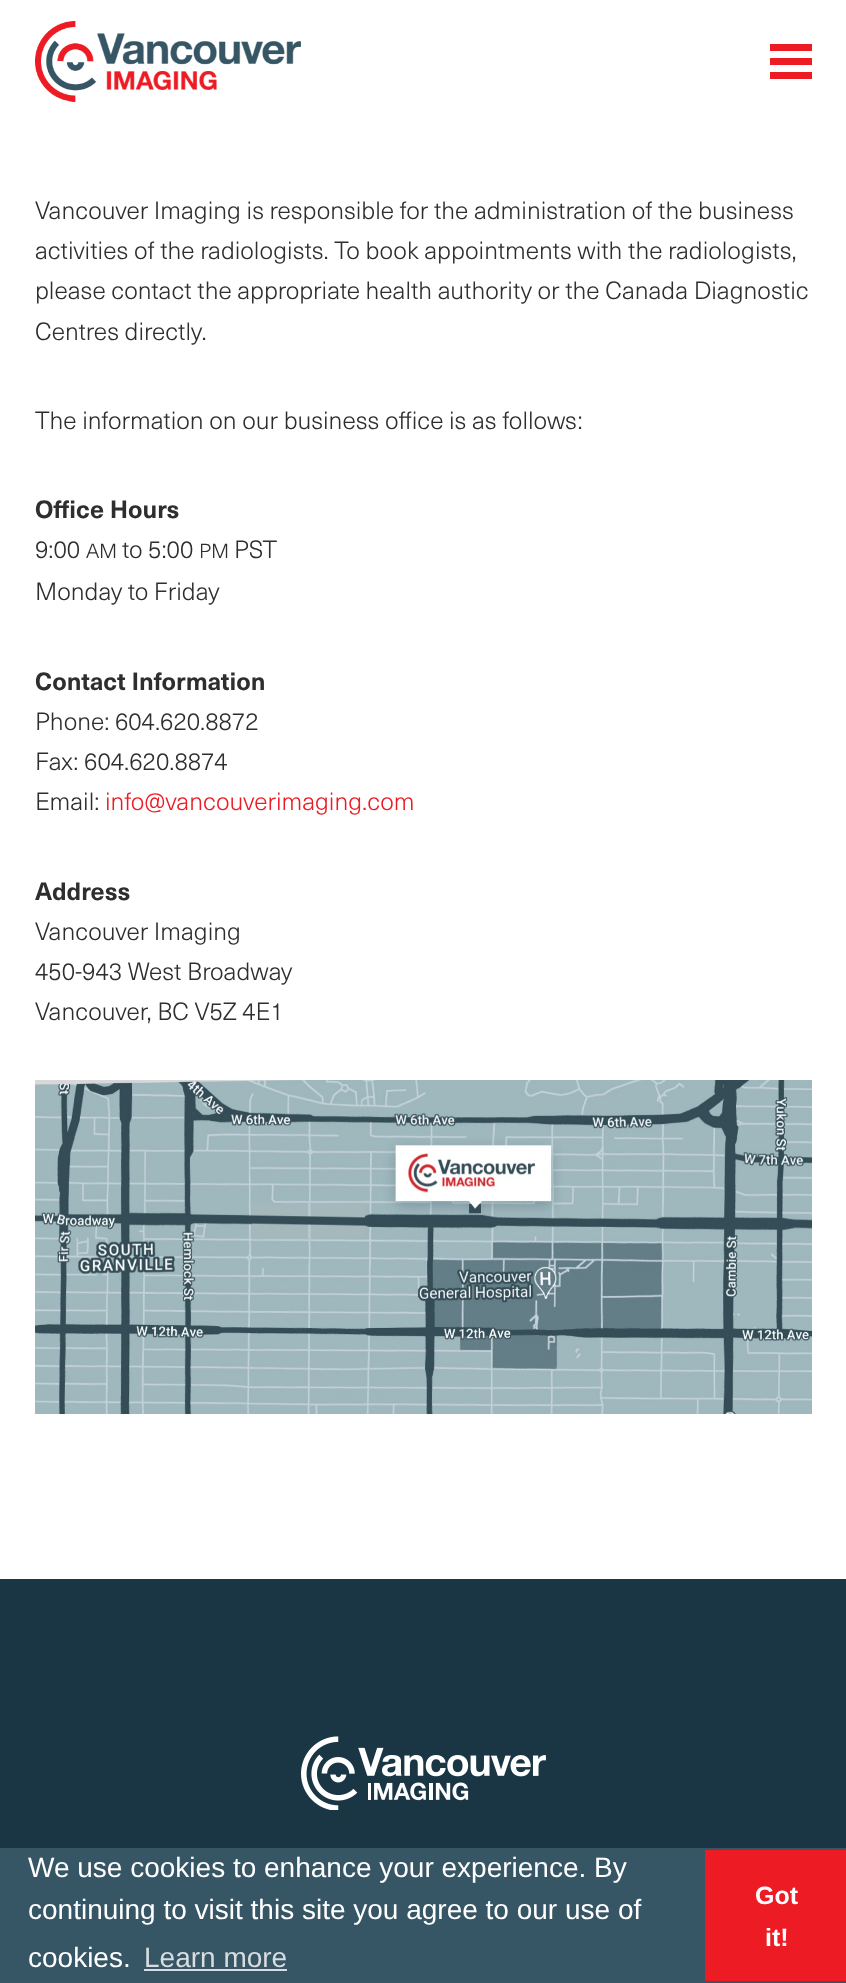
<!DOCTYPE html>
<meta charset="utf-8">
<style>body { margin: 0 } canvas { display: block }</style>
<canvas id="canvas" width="846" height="1983"></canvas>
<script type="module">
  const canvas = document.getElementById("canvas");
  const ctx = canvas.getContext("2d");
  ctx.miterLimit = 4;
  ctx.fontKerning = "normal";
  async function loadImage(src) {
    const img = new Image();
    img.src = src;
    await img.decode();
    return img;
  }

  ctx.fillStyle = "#ffffff";
  ctx.fillRect(0, 0, 846, 1983);
  ctx.drawImage(await loadImage("img1.png"), 35, 21, 266, 81);
  ctx.fillStyle = "#ed1c24";
  ctx.fillRect(770, 44, 42, 7);
  ctx.fillRect(770, 58, 42, 7);
  ctx.fillRect(770, 72, 42, 7);
  ctx.font = "300 24.5px 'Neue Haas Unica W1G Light'";
  ctx.fillStyle = "#2e2e2e";
  ctx.fillText("Vancouver Imaging is responsible for the administration of the business", 35, 219);
  ctx.fillText("activities of the radiologists. To book appointments with the radiologists,", 35, 259);
  ctx.fillText("please contact the appropriate health authority or the Canada Diagnostic", 35, 299);
  ctx.fillText("Centres directly.", 35, 340);
  ctx.fillText("The information on our business office is as follows:", 35, 429);
  ctx.font = "bold 24.5px 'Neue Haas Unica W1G'";
  ctx.fillText("Office Hours", 35, 518);
  ctx.font = "300 24.5px 'Neue Haas Unica W1G Light'";
  ctx.fillText("9:00", 35, 558);
  ctx.font = "300 20px 'Neue Haas Unica W1G Light'";
  ctx.fillText("AM", 86, 558);
  ctx.font = "300 24.5px 'Neue Haas Unica W1G Light'";
  ctx.fillText("to 5:00", 122, 558);
  ctx.font = "300 20px 'Neue Haas Unica W1G Light'";
  ctx.fillText("PM", 199, 558);
  ctx.font = "300 24.5px 'Neue Haas Unica W1G Light'";
  ctx.fillText("PST", 234, 558);
  ctx.fillText("Monday to Friday", 35, 600);
  ctx.font = "bold 24.5px 'Neue Haas Unica W1G'";
  ctx.fillText("Contact Information", 35, 690);
  ctx.font = "300 24.5px 'Neue Haas Unica W1G Light'";
  ctx.fillText("Phone: 604.620.8872", 35, 730);
  ctx.fillText("Fax: 604.620.8874", 35, 770);
  ctx.fillText("Email:", 35, 810);
  ctx.fillStyle = "#ed1c24";
  ctx.fillText("info@vancouverimaging.com", 105, 810);
  ctx.font = "bold 24.5px 'Neue Haas Unica W1G'";
  ctx.fillStyle = "#2e2e2e";
  ctx.fillText("Address", 35, 900);
  ctx.font = "300 24.5px 'Neue Haas Unica W1G Light'";
  ctx.fillText("Vancouver Imaging", 35, 940);
  ctx.fillText("450-943 West Broadway", 35, 980);
  ctx.fillText("Vancouver, BC V5Z 4E1", 35, 1020);
  ctx.drawImage(await loadImage("img2.png"), 35, 1080, 777, 334);
  ctx.fillStyle = "#1a3645";
  ctx.fillRect(0, 1579, 846, 269);
  ctx.drawImage(await loadImage("img3.png"), 301, 1736, 245, 74);
  ctx.fillStyle = "#365565";
  ctx.fillRect(0, 1848, 846, 135);
  ctx.font = "28px Liberation Sans";
  ctx.fillStyle = "#ffffff";
  ctx.fillText("We use cookies to enhance your experience. By", 28, 1877);
  ctx.fillText("continuing to visit this site you agree to our use of", 28, 1919);
  ctx.fillText("cookies.", 28, 1967);
  ctx.fillStyle = "#d7dde0";
  ctx.fillText("Learn more", 144, 1967);
  ctx.fillRect(144, 1969, 143, 2);
  ctx.fillStyle = "#ed1c24";
  ctx.fillRect(705, 1850, 141, 131);
  ctx.font = "bold 25px Liberation Sans";
  ctx.fillStyle = "#ffffff";
  ctx.fillText("Got", 755, 1904);
  ctx.fillText("it!", 765, 1946);
</script>
